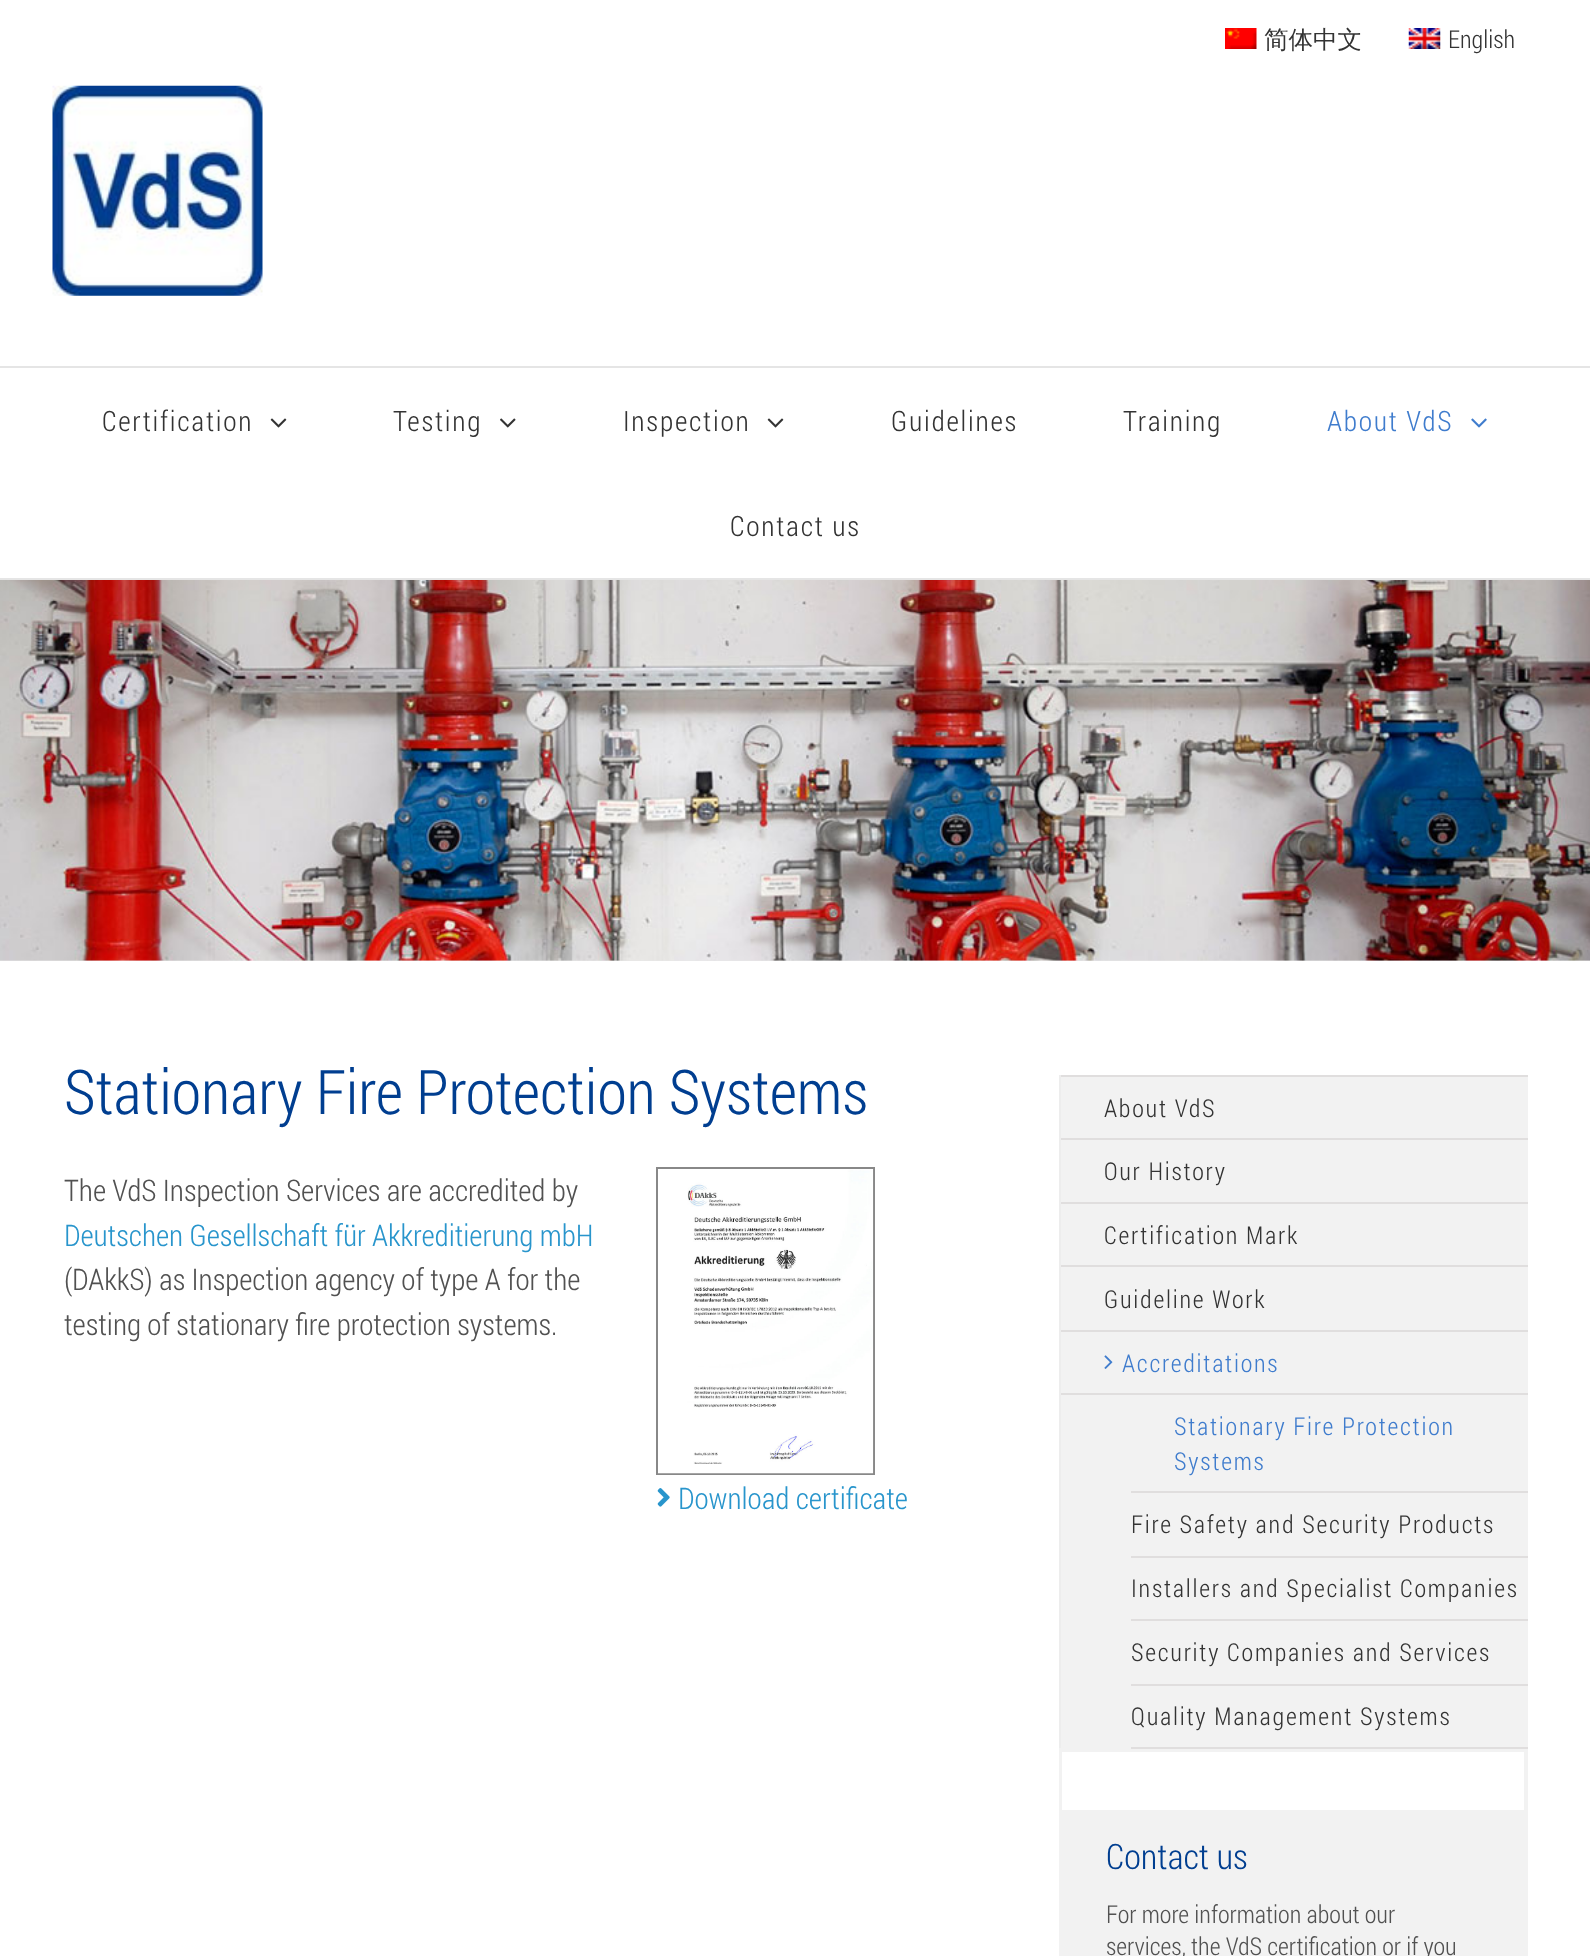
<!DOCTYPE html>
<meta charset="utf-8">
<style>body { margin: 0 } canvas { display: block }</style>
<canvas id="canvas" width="1590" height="1956"></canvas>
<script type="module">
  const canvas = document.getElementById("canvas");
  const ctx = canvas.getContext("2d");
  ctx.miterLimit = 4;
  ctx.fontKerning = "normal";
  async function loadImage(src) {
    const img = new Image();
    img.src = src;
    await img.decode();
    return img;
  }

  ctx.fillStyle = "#ffffff";
  ctx.fillRect(0, 0, 1590, 1956);
  ctx.drawImage(await loadImage("img1.png"), 1225, 28, 32, 21);
  ctx.font = "500 24.5px WenQuanYi Zen Hei";
  ctx.fillStyle = "#333333";
  ctx.fillText("简体中文", 1264, 48);
  ctx.drawImage(await loadImage("img2.png"), 1408, 28, 33, 21);
  ctx.font = "300 24.5px Roboto Condensed";
  ctx.fillText("English", 1448, 48);
  ctx.fillStyle = "#e5e5e5";
  ctx.fillRect(0, 366, 1590, 2);
  ctx.drawImage(await loadImage("img3.png"), 52, 85, 211, 211);
  ctx.fillRect(0, 578, 1590, 2);
  ctx.letterSpacing = "1.75px";
  ctx.font = "300 28px Roboto Condensed";
  ctx.fillStyle = "#333333";
  ctx.fillText("Certification", 102, 431);
  ctx.drawImage(await loadImage("img4.png"), 270, 418, 17, 10);
  ctx.fillText("Testing", 393, 431);
  ctx.drawImage(await loadImage("img5.png"), 500, 418, 16, 10);
  ctx.fillText("Inspection", 623, 431);
  ctx.drawImage(await loadImage("img4.png"), 767, 418, 17, 10);
  ctx.fillText("Guidelines", 891, 431);
  ctx.fillText("Training", 1123, 431);
  ctx.fillStyle = "#3f7ccd";
  ctx.fillText("About VdS", 1327, 431);
  ctx.drawImage(await loadImage("img6.png"), 1471, 418, 16, 10);
  ctx.fillStyle = "#333333";
  ctx.fillText("Contact us", 730, 536);
  ctx.fillStyle = "#e9e9e9";
  ctx.fillRect(0, 960, 1590, 1);
  ctx.drawImage(await loadImage("img7.png"), 0, 580, 1590, 381);
  ctx.letterSpacing = "0px";
  ctx.font = "300 61.6px Roboto Condensed";
  ctx.fillStyle = "#003e90";
  ctx.fillText("Stationary Fire Protection Systems", 64, 1114);
  ctx.font = "300 29.75px Roboto Condensed";
  ctx.fillStyle = "#515151";
  ctx.fillText("The VdS Inspection Services are accredited by", 64, 1201);
  ctx.fillStyle = "#2895cc";
  ctx.fillText("Deutschen Gesellschaft für Akkreditierung mbH", 64, 1246);
  ctx.fillStyle = "#515151";
  ctx.fillText("(DAkkS) as Inspection agency of type A for the", 64, 1290);
  ctx.fillText("testing of stationary fire protection systems.", 64, 1335);
  ctx.strokeStyle = "#888888";
  ctx.lineWidth = 2;
  ctx.strokeRect(657, 1168, 217, 306);
  ctx.drawImage(await loadImage("img8.png"), 658, 1169, 216, 305);
  ctx.drawImage(await loadImage("img9.png"), 657, 1488, 13, 19);
  ctx.fillStyle = "#2895cc";
  ctx.fillText("Download certificate", 678, 1509);
  ctx.fillStyle = "#f2f2f2";
  ctx.fillRect(1059, 1077, 469, 879);
  ctx.fillStyle = "#e0dede";
  ctx.fillRect(1059, 1075, 469, 2);
  ctx.fillStyle = "#ededed";
  ctx.fillRect(1059, 1075, 2, 673);
  ctx.fillStyle = "#e0dede";
  ctx.fillRect(1061, 1138, 467, 2);
  ctx.letterSpacing = "1.75px";
  ctx.font = "300 24.5px Roboto Condensed";
  ctx.fillStyle = "#333333";
  ctx.fillText("About VdS", 1104, 1117);
  ctx.fillStyle = "#e0dede";
  ctx.fillRect(1061, 1202, 467, 2);
  ctx.fillStyle = "#333333";
  ctx.fillText("Our History", 1104, 1180);
  ctx.fillStyle = "#e0dede";
  ctx.fillRect(1061, 1265, 467, 2);
  ctx.fillStyle = "#333333";
  ctx.fillText("Certification Mark", 1104, 1244);
  ctx.fillStyle = "#e0dede";
  ctx.fillRect(1061, 1330, 467, 2);
  ctx.fillStyle = "#333333";
  ctx.fillText("Guideline Work", 1104, 1308);
  ctx.fillStyle = "#e0dede";
  ctx.fillRect(1061, 1393, 467, 2);
  ctx.drawImage(await loadImage("img10.png"), 1104, 1355, 9, 14);
  ctx.fillStyle = "#3f7ccd";
  ctx.fillText("Accreditations", 1122, 1372);
  ctx.fillStyle = "#e0dede";
  ctx.fillRect(1131, 1491, 397, 2);
  ctx.fillStyle = "#3f7ccd";
  ctx.fillText("Stationary Fire Protection", 1174, 1435);
  ctx.fillText("Systems", 1174, 1470);
  ctx.fillStyle = "#e0dede";
  ctx.fillRect(1131, 1556, 397, 2);
  ctx.fillStyle = "#333333";
  ctx.fillText("Fire Safety and Security Products", 1131, 1533);
  ctx.fillStyle = "#e0dede";
  ctx.fillRect(1131, 1619, 397, 2);
  ctx.fillStyle = "#333333";
  ctx.fillText("Installers and Specialist Companies", 1131, 1597);
  ctx.fillStyle = "#e0dede";
  ctx.fillRect(1131, 1684, 397, 2);
  ctx.fillStyle = "#333333";
  ctx.fillText("Security Companies and Services", 1131, 1661);
  ctx.fillStyle = "#e0dede";
  ctx.fillRect(1131, 1747, 397, 2);
  ctx.fillStyle = "#333333";
  ctx.fillText("Quality Management Systems", 1131, 1725);
  ctx.fillStyle = "#ffffff";
  ctx.fillRect(1062, 1752, 462, 58);
  ctx.letterSpacing = "0px";
  ctx.font = "300 35px Roboto Condensed";
  ctx.fillStyle = "#003e90";
  ctx.fillText("Contact us", 1106, 1869);
  ctx.font = "300 24.5px Roboto Condensed";
  ctx.fillStyle = "#515151";
  ctx.fillText("For more information about our", 1106, 1923);
  ctx.fillText("services, the VdS certification or if you", 1106, 1955);
</script>
